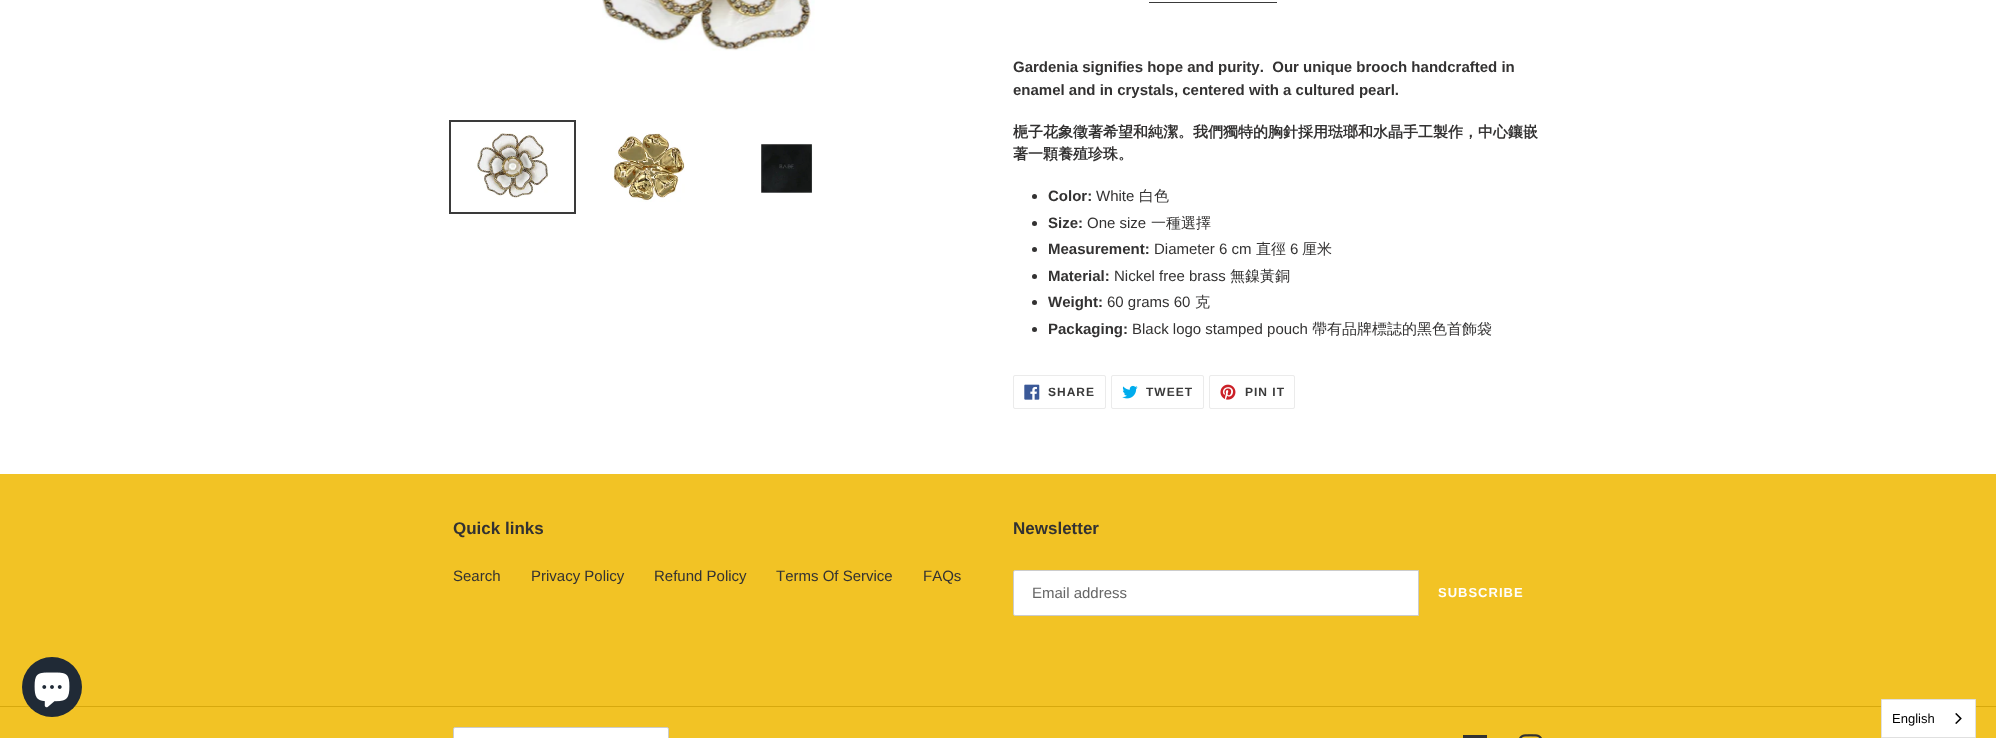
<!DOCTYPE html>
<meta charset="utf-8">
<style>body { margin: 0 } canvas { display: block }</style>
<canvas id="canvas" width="1996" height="738"></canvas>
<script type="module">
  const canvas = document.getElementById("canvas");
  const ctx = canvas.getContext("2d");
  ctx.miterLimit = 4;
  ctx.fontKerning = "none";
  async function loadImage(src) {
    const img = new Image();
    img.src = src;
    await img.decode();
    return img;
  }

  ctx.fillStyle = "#ffffff";
  ctx.fillRect(0, 0, 1996, 738);
  ctx.drawImage(await loadImage("img1.png"), 602, 0, 213, 51);
  ctx.strokeStyle = "#3a3a3a";
  ctx.lineWidth = 2;
  ctx.strokeRect(450, 121, 125, 92);
  ctx.drawImage(await loadImage("img2.png"), 476, 133, 73, 66);
  ctx.drawImage(await loadImage("img3.png"), 613, 133, 72, 69);
  ctx.drawImage(await loadImage("img4.png"), 761, 143, 52, 50);
  ctx.fillStyle = "#3a3a3a";
  ctx.fillRect(1149, 2, 128, 1);
  ctx.font = "bold 15px Liberation Sans";
  ctx.fillStyle = "#333232";
  ctx.fillText("Gardenia signifies hope and purity.  Our unique brooch handcrafted in", 1013, 72);
  ctx.fillText("enamel and in crystals, centered with a cultured pearl.", 1013, 95);
  ctx.font = "bold 15px WenQuanYi Zen Hei";
  ctx.fillText("梔子花象徵著希望和純潔。我們獨特的胸針採用琺瑯和水晶手工製作，中心鑲嵌", 1013, 137);
  ctx.fillText("著一顆養殖珍珠。", 1013, 159);
  ctx.beginPath();
  ctx.arc(1034.5, 196.5, 2.5, 0, Math.PI * 2);
  ctx.fill();
  ctx.font = "bold 15px Liberation Sans";
  ctx.fillText("Color:", 1048, 201);
  ctx.font = "15px Liberation Sans";
  ctx.fillText("White", 1096, 201);
  ctx.font = "500 15px WenQuanYi Zen Hei";
  ctx.fillText("白色", 1139, 201);
  ctx.beginPath();
  ctx.arc(1034.5, 223.5, 2.5, 0, Math.PI * 2);
  ctx.fill();
  ctx.font = "bold 15px Liberation Sans";
  ctx.fillText("Size:", 1048, 228);
  ctx.font = "15px Liberation Sans";
  ctx.fillText("One size", 1087, 228);
  ctx.font = "500 15px WenQuanYi Zen Hei";
  ctx.fillText("一種選擇", 1151, 228);
  ctx.beginPath();
  ctx.arc(1034.5, 249.5, 2.5, 0, Math.PI * 2);
  ctx.fill();
  ctx.font = "bold 15px Liberation Sans";
  ctx.fillText("Measurement:", 1048, 254);
  ctx.font = "15px Liberation Sans";
  ctx.fillText("Diameter 6 cm", 1154, 254);
  ctx.font = "500 15px WenQuanYi Zen Hei";
  ctx.fillText("直徑", 1256, 254);
  ctx.font = "15px Liberation Sans";
  ctx.fillText("6", 1290, 254);
  ctx.font = "500 15px WenQuanYi Zen Hei";
  ctx.fillText("厘米", 1302, 254);
  ctx.beginPath();
  ctx.arc(1034.5, 276.5, 2.5, 0, Math.PI * 2);
  ctx.fill();
  ctx.font = "bold 15px Liberation Sans";
  ctx.fillText("Material:", 1048, 281);
  ctx.font = "15px Liberation Sans";
  ctx.fillText("Nickel free brass", 1114, 281);
  ctx.font = "500 15px WenQuanYi Zen Hei";
  ctx.fillText("無鎳黃銅", 1230, 281);
  ctx.beginPath();
  ctx.arc(1034.5, 302.5, 2.5, 0, Math.PI * 2);
  ctx.fill();
  ctx.font = "bold 15px Liberation Sans";
  ctx.fillText("Weight:", 1048, 307);
  ctx.font = "15px Liberation Sans";
  ctx.fillText("60 grams 60", 1107, 307);
  ctx.font = "500 15px WenQuanYi Zen Hei";
  ctx.fillText("克", 1195, 307);
  ctx.beginPath();
  ctx.arc(1034.5, 329.5, 2.5, 0, Math.PI * 2);
  ctx.fill();
  ctx.font = "bold 15px Liberation Sans";
  ctx.fillText("Packaging:", 1048, 334);
  ctx.font = "15px Liberation Sans";
  ctx.fillText("Black logo stamped pouch", 1132, 334);
  ctx.font = "500 15px WenQuanYi Zen Hei";
  ctx.fillText("帶有品牌標誌的黑色首飾袋", 1312, 334);
  ctx.beginPath();
  ctx.roundRect(1013.5, 375.5, 92, 33, 1.5);
  ctx.strokeStyle = "#ebebeb";
  ctx.lineWidth = 1;
  ctx.stroke();
  ctx.drawImage(await loadImage("img5.png"), 1024, 384, 16, 16);
  ctx.letterSpacing = "1px";
  ctx.font = "bold 12px Liberation Sans";
  ctx.fillStyle = "#3a3a3a";
  ctx.fillText("SHARE", 1048, 396);
  ctx.beginPath();
  ctx.roundRect(1111.5, 375.5, 92, 33, 1.5);
  ctx.stroke();
  ctx.drawImage(await loadImage("img6.png"), 1122, 385, 16, 14);
  ctx.fillText("TWEET", 1146, 396);
  ctx.beginPath();
  ctx.roundRect(1209.5, 375.5, 85, 33, 1.5);
  ctx.stroke();
  ctx.drawImage(await loadImage("img7.png"), 1220, 384, 16, 16);
  ctx.fillText("PIN IT", 1245, 396);
  ctx.fillStyle = "#f2c325";
  ctx.fillRect(0, 474, 1996, 264);
  ctx.letterSpacing = "0px";
  ctx.font = "bold 17px Liberation Sans";
  ctx.fillStyle = "#333232";
  ctx.fillText("Quick links", 453, 534);
  ctx.font = "15px Liberation Sans";
  ctx.fillText("Search", 453, 581);
  ctx.fillText("Privacy Policy", 531, 581);
  ctx.fillText("Refund Policy", 654, 581);
  ctx.fillText("Terms Of Service", 776, 581);
  ctx.fillText("FAQs", 923, 581);
  ctx.font = "bold 17px Liberation Sans";
  ctx.fillText("Newsletter", 1013, 534);
  ctx.fillStyle = "#ffffff";
  ctx.beginPath();
  ctx.roundRect(1013.5, 570.5, 405, 45, [1.5, 0, 0, 1.5]);
  ctx.fill();
  ctx.strokeStyle = "#cccccc";
  ctx.stroke();
  ctx.font = "15px Liberation Sans";
  ctx.fillStyle = "#666666";
  ctx.fillText("Email address", 1032, 598);
  ctx.letterSpacing = "1px";
  ctx.font = "bold 13px Liberation Sans";
  ctx.fillStyle = "#ffffff";
  ctx.fillText("SUBSCRIBE", 1438, 597);
  ctx.fillStyle = "#d7a90d";
  ctx.fillRect(0, 706, 1996, 1);
  ctx.fillStyle = "#ffffff";
  ctx.beginPath();
  ctx.roundRect(453.5, 727.5, 215, 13, 1.5);
  ctx.fill();
  ctx.stroke();
  ctx.fillStyle = "#333232";
  ctx.fillRect(1463, 735, 24, 3);
  ctx.drawImage(await loadImage("img8.png"), 1519, 734, 23, 4);
  ctx.fillStyle = "#202a36";
  ctx.beginPath();
  ctx.arc(52, 687, 30, 0, Math.PI * 2);
  ctx.fill();
  ctx.drawImage(await loadImage("img9.png"), 34, 672, 36, 36);
  ctx.fillStyle = "#ffffff";
  ctx.beginPath();
  ctx.rect(1881.5, 699.5, 94, 38);
  ctx.fill();
  ctx.strokeStyle = "#e0e0e0";
  ctx.stroke();
  ctx.letterSpacing = "0px";
  ctx.font = "13px Liberation Sans";
  ctx.fillStyle = "#000000";
  ctx.fillText("English", 1892, 723);
  ctx.drawImage(await loadImage("img10.png"), 1955, 713, 7, 11);
</script>
